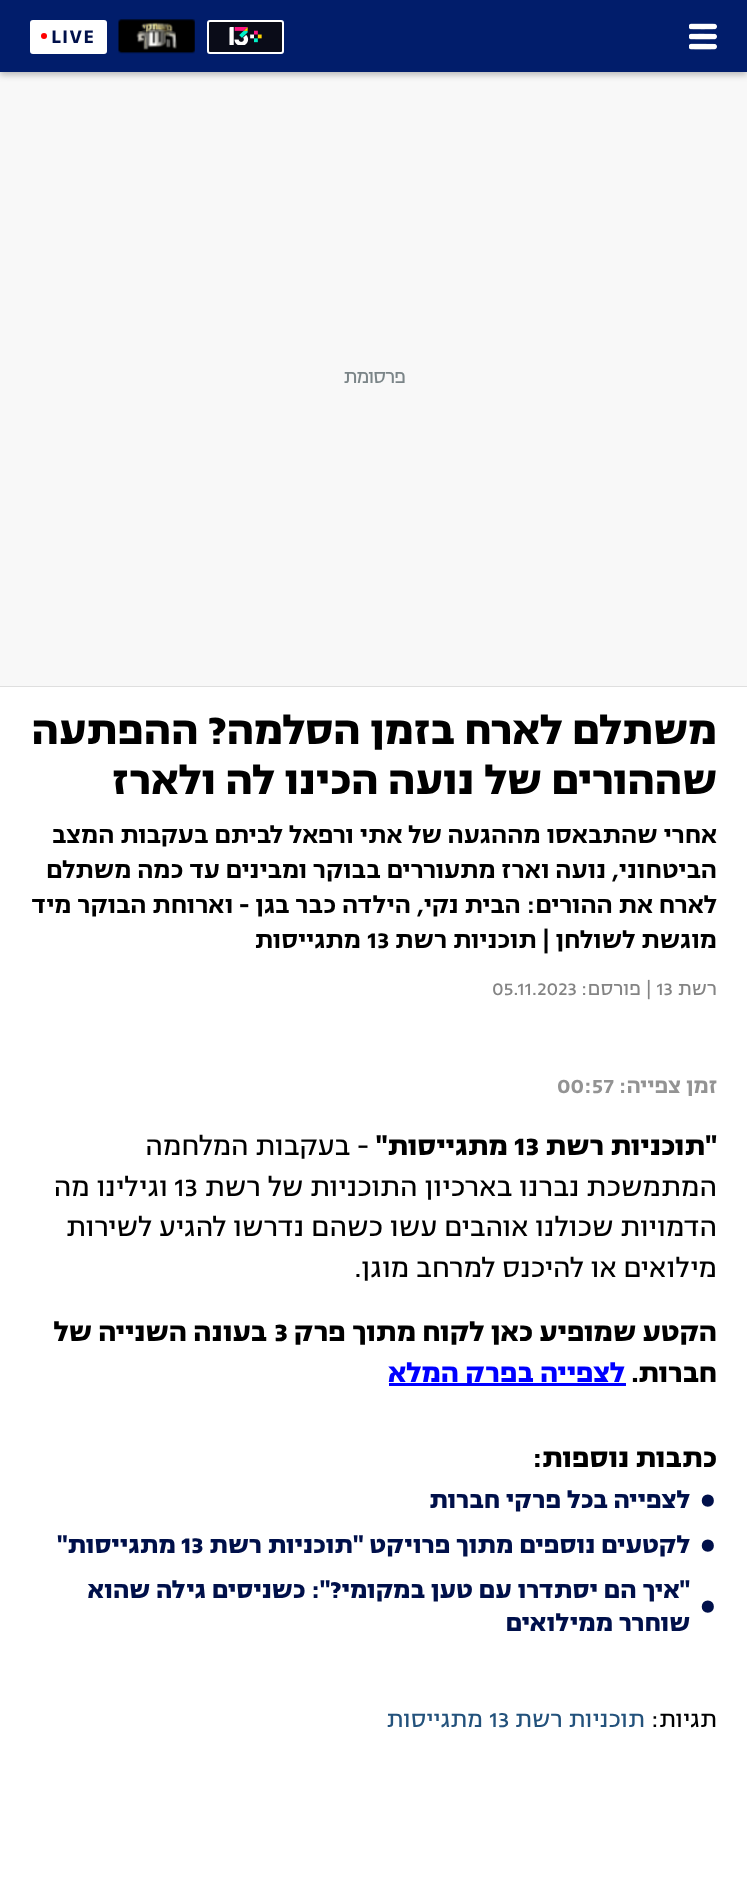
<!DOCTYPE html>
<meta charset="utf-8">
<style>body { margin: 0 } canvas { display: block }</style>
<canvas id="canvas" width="747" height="1878"></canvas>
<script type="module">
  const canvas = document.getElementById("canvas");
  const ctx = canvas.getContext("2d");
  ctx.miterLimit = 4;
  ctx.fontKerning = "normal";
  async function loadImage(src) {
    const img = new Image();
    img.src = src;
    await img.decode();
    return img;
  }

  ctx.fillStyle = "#ffffff";
  ctx.fillRect(0, 0, 747, 1878);
  ctx.fillStyle = "#f8f8f8";
  ctx.fillRect(0, 72, 747, 614);
  ctx.fillStyle = "rgba(0, 0, 0, 0.25)";
  ctx.filter = "blur(3px)";
  ctx.beginPath();
  ctx.rect(0, 3, 747, 72);
  ctx.fill();
  ctx.filter = "none";
  ctx.fillStyle = "#011d6b";
  ctx.fillRect(0, 0, 747, 72);
  ctx.drawImage(await loadImage("img1.png"), 689, 23, 28, 27);
  ctx.fillStyle = "#0a0c18";
  ctx.beginPath();
  ctx.roundRect(208, 21, 75, 32, 2);
  ctx.fill();
  ctx.strokeStyle = "#ffffff";
  ctx.lineWidth = 2;
  ctx.stroke();
  ctx.drawImage(await loadImage("img2.png"), 229, 27, 33, 18);
  ctx.drawImage(await loadImage("img3.png"), 118, 19, 77, 35);
  ctx.fillStyle = "#ffffff";
  ctx.beginPath();
  ctx.roundRect(30, 20, 77, 34, 3);
  ctx.fill();
  ctx.letterSpacing = "1px";
  ctx.font = "600 22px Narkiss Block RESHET";
  ctx.fillStyle = "#00104a";
  ctx.fillText("LIVE", 51, 43);
  ctx.fillStyle = "#ff0000";
  ctx.beginPath();
  ctx.arc(44, 36, 3, 0, Math.PI * 2);
  ctx.fill();
  ctx.fillStyle = "#dfdfdf";
  ctx.fillRect(0, 686, 747, 1);
  ctx.letterSpacing = "-1px";
  ctx.direction = "rtl";
  ctx.font = "21px Narkiss Block RESHET";
  ctx.fillStyle = "#7b8588";
  ctx.fillText("פרסומת", 405, 383);
  ctx.letterSpacing = "0px";
  ctx.font = "bold 45px Narkiss Block RESHET";
  ctx.fillStyle = "#000000";
  ctx.fillText("משתלם לארח בזמן הסלמה? ההפתעה", 717, 744);
  ctx.fillText("שההורים של נועה הכינו לה ולארז", 717, 794);
  ctx.font = "600 27px Narkiss Block RESHET";
  ctx.fillText("אחרי שהתבאסו מההגעה של אתי ורפאל לביתם בעקבות המצב", 717, 843);
  ctx.fillText("הביטחוני, נועה וארז מתעוררים בבוקר ומבינים עד כמה משתלם", 717, 878);
  ctx.fillText("לארח את ההורים: הבית נקי, הילדה כבר בגן - וארוחת הבוקר מיד", 717, 913);
  ctx.fillText("מוגשת לשולחן | תוכניות רשת", 717, 948);
  ctx.direction = "ltr";
  ctx.fillText("13", 367, 948);
  ctx.direction = "rtl";
  ctx.fillText("מתגייסות", 361, 948);
  ctx.font = "21px Narkiss Block RESHET";
  ctx.fillStyle = "#848484";
  ctx.fillText("רשת", 717, 995);
  ctx.direction = "ltr";
  ctx.fillText("| 13", 646, 995);
  ctx.direction = "rtl";
  ctx.fillText("פורסם:", 641, 995);
  ctx.direction = "ltr";
  ctx.fillText("05.11.2023", 492, 995);
  ctx.direction = "rtl";
  ctx.font = "600 24px Narkiss Block RESHET";
  ctx.fillStyle = "#939393";
  ctx.fillText("זמן צפייה:", 717, 1093);
  ctx.direction = "ltr";
  ctx.fillText("00:57", 557, 1093);
  ctx.direction = "rtl";
  ctx.font = "bold 30px Narkiss Block RESHET";
  ctx.fillStyle = "#000000";
  ctx.fillText("\"תוכניות רשת", 717, 1155);
  ctx.direction = "ltr";
  ctx.fillText("13", 514, 1155);
  ctx.direction = "rtl";
  ctx.fillText("מתגייסות\"", 508, 1155);
  ctx.font = "30px Narkiss Block RESHET";
  ctx.fillText("- בעקבות המלחמה", 369, 1155);
  ctx.fillText("המתמשכת נברנו בארכיון התוכניות של רשת", 717, 1196);
  ctx.direction = "ltr";
  ctx.fillText("13", 174, 1196);
  ctx.direction = "rtl";
  ctx.fillText("וגילינו מה", 168, 1196);
  ctx.fillText("הדמויות שכולנו אוהבים עשו כשהם נדרשו להגיע לשירות", 717, 1236);
  ctx.fillText("מילואים או להיכנס למרחב מוגן.", 717, 1277);
  ctx.font = "bold 30px Narkiss Block RESHET";
  ctx.fillText("הקטע שמופיע כאן לקוח מתוך פרק", 717, 1341);
  ctx.direction = "ltr";
  ctx.fillText("3", 274, 1341);
  ctx.direction = "rtl";
  ctx.fillText("בעונה השנייה של", 267, 1341);
  ctx.fillText("חברות.", 717, 1382);
  ctx.fillStyle = "#0000ff";
  ctx.fillRect(389, 1383, 237, 3);
  ctx.fillText("לצפייה בפרק המלא", 625, 1382);
  ctx.fillStyle = "#000000";
  ctx.fillText("כתבות נוספות:", 717, 1467);
  ctx.letterSpacing = "-9px";
  ctx.direction = "ltr";
  ctx.font = "81px Narkiss Block RESHET";
  ctx.fillStyle = "#00104a";
  ctx.fillText("•", 690, 1523);
  ctx.letterSpacing = "0px";
  ctx.direction = "rtl";
  ctx.font = "bold 27px Narkiss Block RESHET";
  ctx.fillText("לצפייה בכל פרקי חברות", 690, 1508);
  ctx.letterSpacing = "-9px";
  ctx.direction = "ltr";
  ctx.font = "81px Narkiss Block RESHET";
  ctx.fillText("•", 690, 1568);
  ctx.letterSpacing = "0px";
  ctx.direction = "rtl";
  ctx.font = "bold 27px Narkiss Block RESHET";
  ctx.fillText("לקטעים נוספים מתוך פרויקט \"תוכניות רשת", 690, 1553);
  ctx.direction = "ltr";
  ctx.fillText("13", 181, 1553);
  ctx.direction = "rtl";
  ctx.fillText("מתגייסות\"", 176, 1553);
  ctx.letterSpacing = "-9px";
  ctx.direction = "ltr";
  ctx.font = "81px Narkiss Block RESHET";
  ctx.fillText("•", 690, 1629);
  ctx.letterSpacing = "0px";
  ctx.direction = "rtl";
  ctx.font = "bold 27px Narkiss Block RESHET";
  ctx.fillText("\"איך הם יסתדרו עם טען במקומי?\": כשניסים גילה שהוא", 690, 1598);
  ctx.fillText("שוחרר ממילואים", 690, 1631);
  ctx.font = "25.5px Narkiss Block RESHET";
  ctx.fillStyle = "#000000";
  ctx.fillText("תגיות:", 717, 1727);
  ctx.fillStyle = "#23527c";
  ctx.fillText("תוכניות רשת", 645, 1727);
  ctx.direction = "ltr";
  ctx.fillText("13", 489, 1727);
  ctx.direction = "rtl";
  ctx.fillText("מתגייסות", 483, 1727);
</script>
